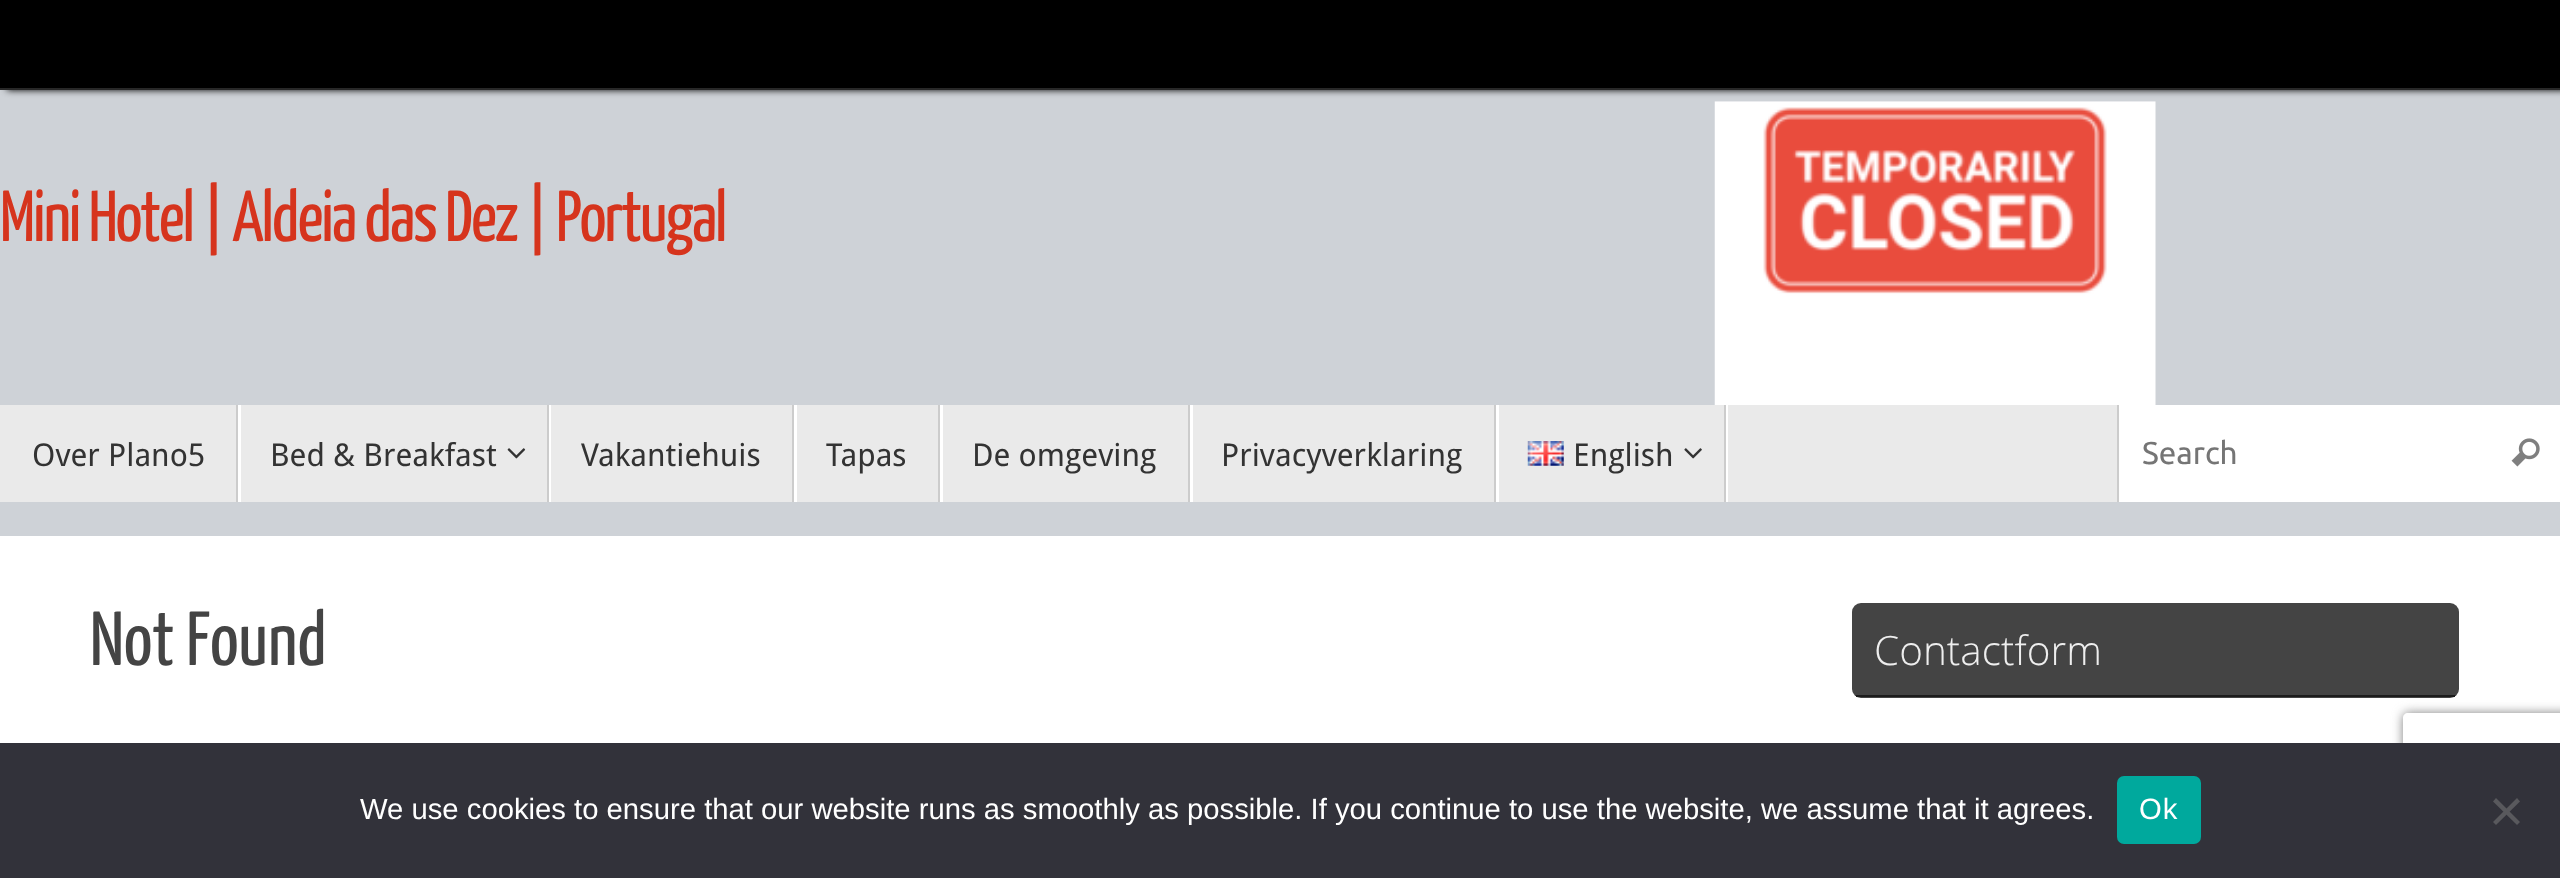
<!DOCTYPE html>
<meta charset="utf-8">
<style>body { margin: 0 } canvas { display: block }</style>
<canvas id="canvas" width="2560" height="878"></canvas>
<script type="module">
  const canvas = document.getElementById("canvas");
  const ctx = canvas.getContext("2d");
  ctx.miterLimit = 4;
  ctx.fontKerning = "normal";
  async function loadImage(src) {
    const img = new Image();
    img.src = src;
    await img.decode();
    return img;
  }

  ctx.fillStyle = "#ced2d7";
  ctx.fillRect(0, 0, 2560, 878);
  ctx.fillStyle = "#000000";
  ctx.filter = "blur(3.5px)";
  ctx.beginPath();
  ctx.rect(7, 0, 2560, 90);
  ctx.fill();
  ctx.filter = "none";
  ctx.fillRect(0, 0, 2560, 88);
  ctx.fillStyle = "#282828";
  ctx.fillRect(0, 88, 2560, 2);
  ctx.letterSpacing = "-2.15px";
  ctx.font = "72px Yanone Kaffeesatz";
  ctx.fillStyle = "#d6341d";
  ctx.fillText("Mini Hotel | Aldeia das Dez | Portugal", 0, 241);
  ctx.drawImage(await loadImage("img1.png"), 1714, 101, 442, 304);
  ctx.fillStyle = "#eaeaea";
  ctx.fillRect(0, 405, 2117, 97);
  ctx.fillStyle = "#ffffff";
  ctx.beginPath();
  ctx.moveTo(2, 502);
  ctx.lineTo(241, 502);
  ctx.lineTo(241, 405);
  ctx.lineTo(238, 405);
  ctx.lineTo(238, 502);
  ctx.closePath();
  ctx.fill();
  ctx.fillStyle = "#cccccc";
  ctx.fillRect(236, 405, 2, 97);
  ctx.letterSpacing = "0px";
  ctx.font = "31.5px Droid Sans";
  ctx.fillStyle = "#333333";
  ctx.fillText("Over Plano5", 32, 466);
  ctx.fillStyle = "#ffffff";
  ctx.beginPath();
  ctx.moveTo(241, 502);
  ctx.lineTo(551, 502);
  ctx.lineTo(551, 405);
  ctx.lineTo(549, 405);
  ctx.lineTo(549, 502);
  ctx.closePath();
  ctx.fill();
  ctx.fillStyle = "#cccccc";
  ctx.fillRect(547, 405, 2, 97);
  ctx.fillStyle = "#333333";
  ctx.fillText("Bed & Breakfast", 270, 466);
  ctx.drawImage(await loadImage("img2.png"), 507, 448, 19, 11);
  ctx.fillStyle = "#ffffff";
  ctx.beginPath();
  ctx.moveTo(551, 502);
  ctx.lineTo(797, 502);
  ctx.lineTo(797, 405);
  ctx.lineTo(794, 405);
  ctx.lineTo(794, 502);
  ctx.closePath();
  ctx.fill();
  ctx.fillStyle = "#cccccc";
  ctx.fillRect(792, 405, 2, 97);
  ctx.fillStyle = "#333333";
  ctx.fillText("Vakantiehuis", 581, 466);
  ctx.fillStyle = "#ffffff";
  ctx.beginPath();
  ctx.moveTo(797, 502);
  ctx.lineTo(943, 502);
  ctx.lineTo(943, 405);
  ctx.lineTo(940, 405);
  ctx.lineTo(940, 502);
  ctx.closePath();
  ctx.fill();
  ctx.fillStyle = "#cccccc";
  ctx.fillRect(938, 405, 2, 97);
  ctx.fillStyle = "#333333";
  ctx.fillText("Tapas", 826, 466);
  ctx.fillStyle = "#ffffff";
  ctx.beginPath();
  ctx.moveTo(943, 502);
  ctx.lineTo(1193, 502);
  ctx.lineTo(1193, 405);
  ctx.lineTo(1190, 405);
  ctx.lineTo(1190, 502);
  ctx.closePath();
  ctx.fill();
  ctx.fillStyle = "#cccccc";
  ctx.fillRect(1188, 405, 2, 97);
  ctx.fillStyle = "#333333";
  ctx.fillText("De omgeving", 972, 466);
  ctx.fillStyle = "#ffffff";
  ctx.beginPath();
  ctx.moveTo(1193, 502);
  ctx.lineTo(1499, 502);
  ctx.lineTo(1499, 405);
  ctx.lineTo(1496, 405);
  ctx.lineTo(1496, 502);
  ctx.closePath();
  ctx.fill();
  ctx.fillStyle = "#cccccc";
  ctx.fillRect(1494, 405, 2, 97);
  ctx.fillStyle = "#333333";
  ctx.fillText("Privacyverklaring", 1221, 466);
  ctx.fillStyle = "#ffffff";
  ctx.beginPath();
  ctx.moveTo(1499, 502);
  ctx.lineTo(1728, 502);
  ctx.lineTo(1728, 405);
  ctx.lineTo(1726, 405);
  ctx.lineTo(1726, 502);
  ctx.closePath();
  ctx.fill();
  ctx.fillStyle = "#cccccc";
  ctx.fillRect(1724, 405, 2, 97);
  ctx.drawImage(await loadImage("img3.png"), 1527, 441, 37, 25);
  ctx.fillStyle = "#333333";
  ctx.fillText("English", 1573, 466);
  ctx.drawImage(await loadImage("img4.png"), 1684, 448, 18, 11);
  ctx.fillStyle = "#ffffff";
  ctx.fillRect(2119, 405, 441, 97);
  ctx.fillStyle = "#cccccc";
  ctx.fillRect(2117, 405, 2, 97);
  ctx.font = "31.5px Ubuntu";
  ctx.fillStyle = "#757575";
  ctx.fillText("Search", 2142, 464);
  ctx.drawImage(await loadImage("img5.png"), 2511, 438, 29, 29);
  ctx.fillStyle = "#ffffff";
  ctx.fillRect(0, 536, 2560, 207);
  ctx.font = "76.5px Yanone Kaffeesatz";
  ctx.fillStyle = "#444444";
  ctx.fillText("Not Found", 90, 665);
  ctx.beginPath();
  ctx.roundRect(1852, 603, 607, 95, 9);
  ctx.fill();
  ctx.fillStyle = "#1c1c1c";
  ctx.fillRect(1856, 695, 599, 2);
  ctx.font = "300 40.5px Open Sans";
  ctx.fillStyle = "#eeeeee";
  ctx.fillText("Contactform", 1874, 665);
  ctx.save();
  ctx.beginPath();
  ctx.moveTo(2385, 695);
  ctx.lineTo(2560, 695);
  ctx.lineTo(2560, 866);
  ctx.lineTo(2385, 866);
  ctx.closePath();
  ctx.moveTo(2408, 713);
  ctx.lineTo(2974, 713);
  ctx.bezierCurveTo(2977, 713, 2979, 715, 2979, 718);
  ctx.lineTo(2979, 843);
  ctx.bezierCurveTo(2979, 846, 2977, 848, 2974, 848);
  ctx.lineTo(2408, 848);
  ctx.bezierCurveTo(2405, 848, 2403, 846, 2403, 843);
  ctx.lineTo(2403, 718);
  ctx.bezierCurveTo(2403, 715, 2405, 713, 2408, 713);
  ctx.closePath();
  ctx.clip("evenodd");
  ctx.fillStyle = "#808080";
  ctx.filter = "blur(5.5px)";
  ctx.beginPath();
  ctx.roundRect(2403, 713, 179, 135, 5);
  ctx.fill();
  ctx.filter = "none";
  ctx.restore();
  ctx.fillStyle = "#32323a";
  ctx.fillRect(0, 743, 2560, 135);
  ctx.font = "29.25px Liberation Sans";
  ctx.fillStyle = "#ffffff";
  ctx.fillText("We use cookies to ensure that our website runs as smoothly as possible. If you continue to use the website, we assume that it agrees.", 360, 819);
  ctx.fillStyle = "#00a99d";
  ctx.beginPath();
  ctx.roundRect(2117, 776, 84, 68, 7);
  ctx.fill();
  ctx.letterSpacing = "1px";
  ctx.fillStyle = "#ffffff";
  ctx.fillText("Ok", 2139, 819);
  ctx.fillStyle = "#59595d";
  ctx.beginPath();
  ctx.moveTo(2517, 798);
  ctx.lineTo(2520, 801.5);
  ctx.lineTo(2496, 825);
  ctx.lineTo(2493, 822);
  ctx.closePath();
  ctx.fill();
  ctx.beginPath();
  ctx.moveTo(2493, 801.5);
  ctx.lineTo(2496, 798);
  ctx.lineTo(2520, 822);
  ctx.lineTo(2517, 825);
  ctx.closePath();
  ctx.fill();
</script>
